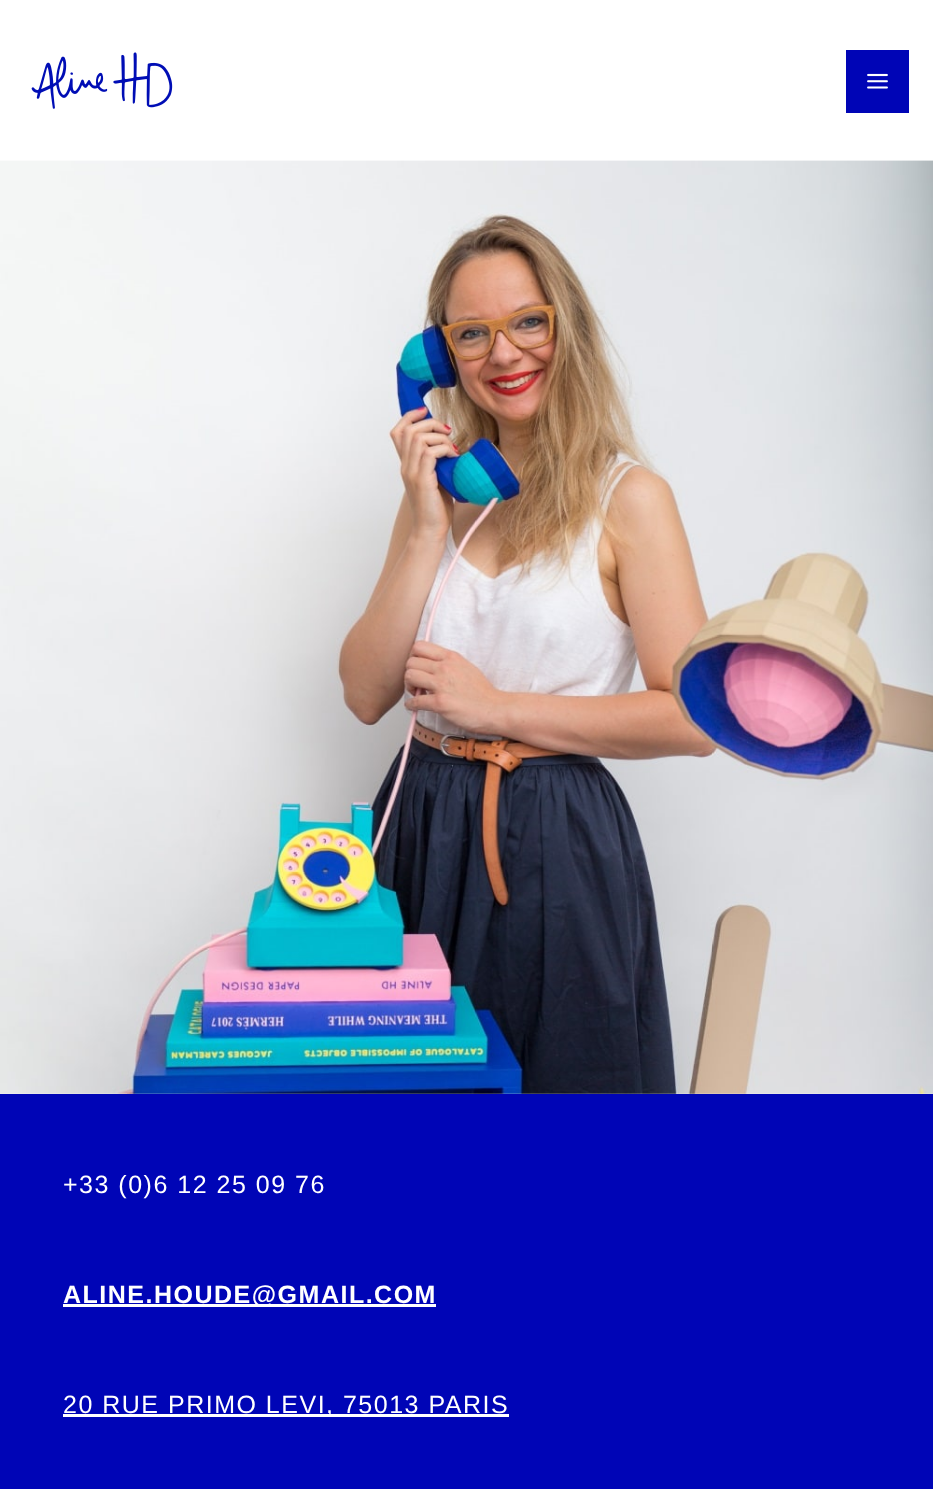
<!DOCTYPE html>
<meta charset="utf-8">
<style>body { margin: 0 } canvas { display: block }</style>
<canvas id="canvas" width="933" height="1489"></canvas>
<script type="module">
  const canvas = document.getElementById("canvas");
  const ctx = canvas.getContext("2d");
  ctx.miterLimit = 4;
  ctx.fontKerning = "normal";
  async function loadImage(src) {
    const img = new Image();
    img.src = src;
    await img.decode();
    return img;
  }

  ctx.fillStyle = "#ffffff";
  ctx.fillRect(0, 0, 933, 1489);
  ctx.drawImage(await loadImage("img3.png"), 0, 160, 933, 934);
  ctx.fillStyle = "rgba(255, 255, 255, 0.6)";
  ctx.fillRect(0, 160, 933, 1);
  ctx.drawImage(await loadImage("img1.png"), 31, 52, 142, 57);
  ctx.fillStyle = "#0005b6";
  ctx.fillRect(846, 50, 63, 63);
  ctx.drawImage(await loadImage("img2.png"), 867, 73, 21, 16);
  ctx.fillRect(0, 1094, 933, 395);
  ctx.letterSpacing = "1.5px";
  ctx.font = "25px Liberation Sans";
  ctx.fillStyle = "#ffffff";
  ctx.fillText("+33 (0)6 12 25 09 76", 63, 1193);
  ctx.fillRect(63, 1304, 373, 3);
  ctx.font = "bold 25px Liberation Sans";
  ctx.fillText("ALINE.HOUDE@GMAIL.COM", 63, 1303);
  ctx.fillRect(63, 1414, 446, 3);
  ctx.font = "25px Liberation Sans";
  ctx.fillText("20 RUE PRIMO LEVI, 75013 PARIS", 63, 1413);
</script>
